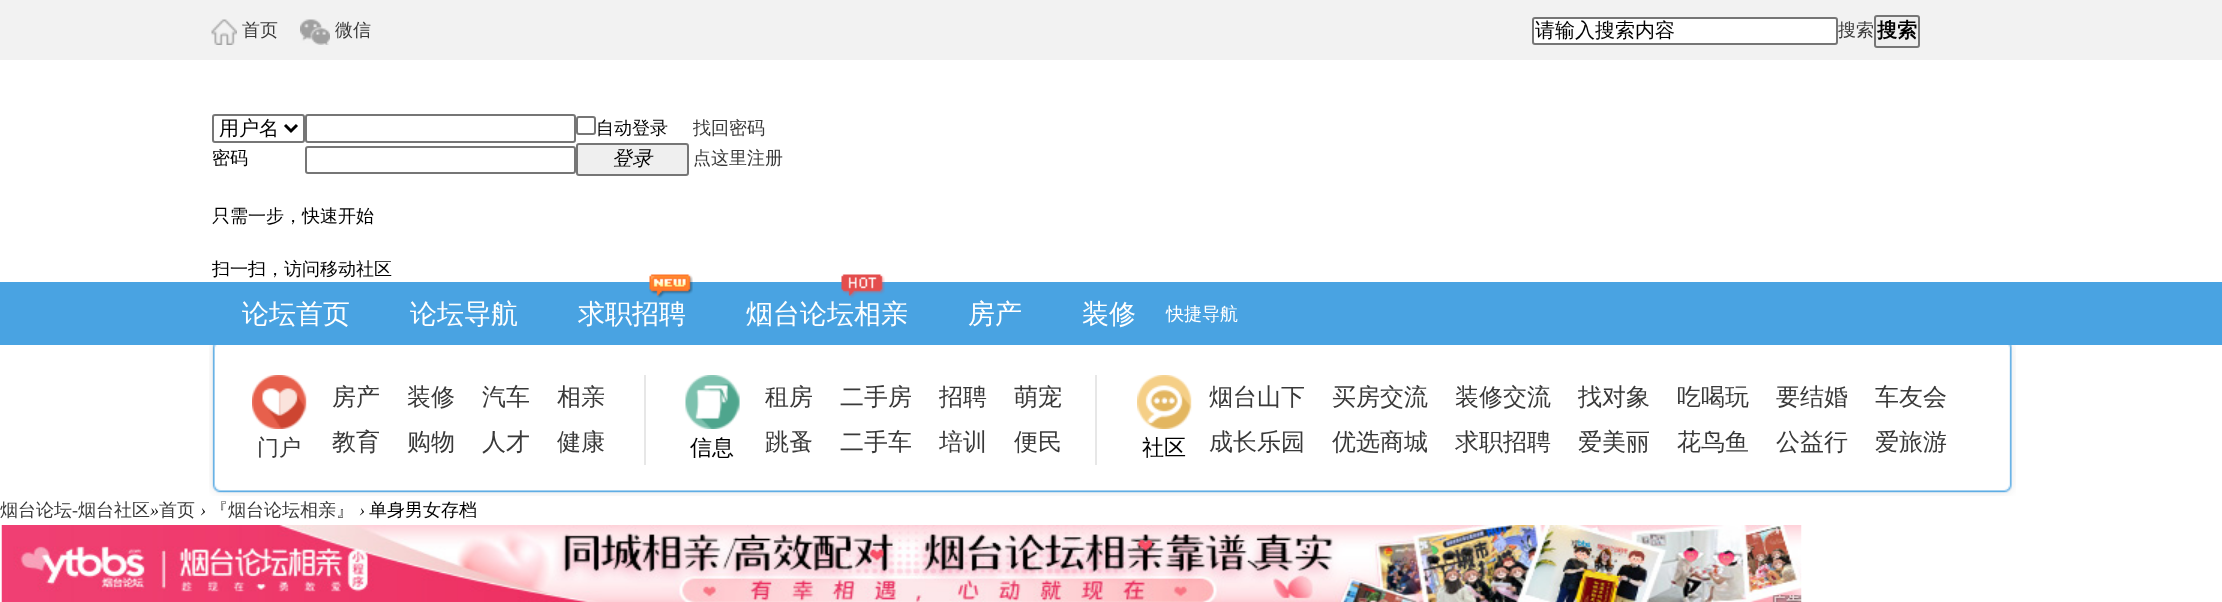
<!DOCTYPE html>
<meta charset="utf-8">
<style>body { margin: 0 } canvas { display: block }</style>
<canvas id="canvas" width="2222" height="602"></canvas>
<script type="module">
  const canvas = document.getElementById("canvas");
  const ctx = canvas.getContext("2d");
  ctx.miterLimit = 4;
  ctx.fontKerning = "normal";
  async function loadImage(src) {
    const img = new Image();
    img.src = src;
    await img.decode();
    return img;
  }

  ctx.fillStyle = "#ffffff";
  ctx.fillRect(0, 0, 2222, 602);
  ctx.fillStyle = "#f2f2f2";
  ctx.fillRect(0, 0, 2222, 60);
  ctx.drawImage(await loadImage("img1.png"), 211, 19, 26, 26);
  ctx.font = "500 18px WenQuanYi Zen Hei";
  ctx.fillStyle = "#393939";
  ctx.fillText("首页", 242, 36);
  ctx.drawImage(await loadImage("img2.png"), 300, 19, 30, 26);
  ctx.fillText("微信", 335, 36);
  ctx.fillStyle = "#ffffff";
  ctx.beginPath();
  ctx.roundRect(1533, 18, 304, 26, 2);
  ctx.fill();
  ctx.strokeStyle = "#767676";
  ctx.lineWidth = 2;
  ctx.stroke();
  ctx.font = "500 20px WenQuanYi Zen Hei";
  ctx.fillStyle = "#000000";
  ctx.fillText("请输入搜索内容", 1535, 37);
  ctx.font = "500 18px WenQuanYi Zen Hei";
  ctx.fillStyle = "#393939";
  ctx.fillText("搜索", 1838, 36);
  ctx.fillStyle = "#efefef";
  ctx.beginPath();
  ctx.roundRect(1875, 16, 44, 31, 2);
  ctx.fill();
  ctx.stroke();
  ctx.font = "bold 20px WenQuanYi Zen Hei";
  ctx.fillStyle = "#000000";
  ctx.fillText("搜索", 1877, 37);
  ctx.beginPath();
  ctx.roundRect(213, 115, 91, 27, 2);
  ctx.stroke();
  ctx.beginPath();
  ctx.moveTo(285, 125);
  ctx.lineTo(291, 131);
  ctx.lineTo(297, 125);
  ctx.strokeStyle = "#000000";
  ctx.lineWidth = 3;
  ctx.stroke();
  ctx.font = "500 20px WenQuanYi Zen Hei";
  ctx.fillText("用户名", 219, 135);
  ctx.beginPath();
  ctx.roundRect(306, 115, 269, 27, 2);
  ctx.strokeStyle = "#767676";
  ctx.lineWidth = 2;
  ctx.stroke();
  ctx.beginPath();
  ctx.roundRect(577, 117, 18, 17, 2);
  ctx.stroke();
  ctx.font = "500 18px WenQuanYi Zen Hei";
  ctx.fillText("自动登录", 596, 134);
  ctx.fillStyle = "#393939";
  ctx.fillText("找回密码", 693, 134);
  ctx.fillStyle = "#000000";
  ctx.fillText("密码", 212, 164);
  ctx.beginPath();
  ctx.roundRect(306, 147, 269, 26, 2);
  ctx.stroke();
  ctx.fillStyle = "#efefef";
  ctx.beginPath();
  ctx.roundRect(577, 144, 111, 31, 2);
  ctx.fill();
  ctx.stroke();
  ctx.font = "italic 500 20px WenQuanYi Zen Hei";
  ctx.fillStyle = "#000000";
  ctx.fillText("登录", 612, 165);
  ctx.font = "500 18px WenQuanYi Zen Hei";
  ctx.fillStyle = "#393939";
  ctx.fillText("点这里注册", 693, 164);
  ctx.fillStyle = "#000000";
  ctx.fillText("只需一步，快速开始", 212, 222);
  ctx.fillText("扫一扫，访问移动社区", 212, 275);
  ctx.fillStyle = "#49a3e2";
  ctx.fillRect(0, 282, 2222, 63);
  ctx.drawImage(await loadImage("img3.png"), 649, 274, 44, 24);
  ctx.drawImage(await loadImage("img4.png"), 841, 274, 44, 24);
  ctx.font = "500 27px WenQuanYi Zen Hei";
  ctx.fillStyle = "#ffffff";
  ctx.fillText("论坛首页", 242, 323);
  ctx.fillText("论坛导航", 410, 323);
  ctx.fillText("求职招聘", 578, 323);
  ctx.fillText("烟台论坛相亲", 746, 323);
  ctx.fillText("房产", 968, 323);
  ctx.fillText("装修", 1082, 323);
  ctx.font = "500 18px WenQuanYi Zen Hei";
  ctx.fillText("快捷导航", 1166, 320);
  ctx.drawImage(await loadImage("img5.png"), 209, 345, 1807, 151);
  ctx.drawImage(await loadImage("img6.png"), 252, 375, 55, 54);
  ctx.font = "500 22px WenQuanYi Zen Hei";
  ctx.fillStyle = "#393939";
  ctx.fillText("门户", 257, 455);
  ctx.fillStyle = "#e7e7e7";
  ctx.fillRect(644, 375, 2, 90);
  ctx.font = "500 24px WenQuanYi Zen Hei";
  ctx.fillStyle = "#393939";
  ctx.fillText("房产", 332, 405);
  ctx.fillText("装修", 407, 405);
  ctx.fillText("汽车", 482, 405);
  ctx.fillText("相亲", 557, 405);
  ctx.fillText("教育", 332, 450);
  ctx.fillText("购物", 407, 450);
  ctx.fillText("人才", 482, 450);
  ctx.fillText("健康", 557, 450);
  ctx.drawImage(await loadImage("img7.png"), 685, 375, 55, 54);
  ctx.font = "500 22px WenQuanYi Zen Hei";
  ctx.fillStyle = "#000000";
  ctx.fillText("信息", 690, 455);
  ctx.fillStyle = "#e7e7e7";
  ctx.fillRect(1095, 375, 2, 90);
  ctx.font = "500 24px WenQuanYi Zen Hei";
  ctx.fillStyle = "#393939";
  ctx.fillText("租房", 765, 405);
  ctx.fillText("二手房", 840, 405);
  ctx.fillText("招聘", 939, 405);
  ctx.fillText("萌宠", 1014, 405);
  ctx.fillText("跳蚤", 765, 450);
  ctx.fillText("二手车", 840, 450);
  ctx.fillText("培训", 939, 450);
  ctx.fillText("便民", 1014, 450);
  ctx.drawImage(await loadImage("img8.png"), 1137, 375, 55, 54);
  ctx.font = "500 22px WenQuanYi Zen Hei";
  ctx.fillStyle = "#000000";
  ctx.fillText("社区", 1142, 455);
  ctx.font = "500 24px WenQuanYi Zen Hei";
  ctx.fillStyle = "#393939";
  ctx.fillText("烟台山下", 1209, 405);
  ctx.fillText("买房交流", 1332, 405);
  ctx.fillText("装修交流", 1455, 405);
  ctx.fillText("找对象", 1578, 405);
  ctx.fillText("吃喝玩", 1677, 405);
  ctx.fillText("要结婚", 1776, 405);
  ctx.fillText("车友会", 1875, 405);
  ctx.fillText("成长乐园", 1209, 450);
  ctx.fillText("优选商城", 1332, 450);
  ctx.fillText("求职招聘", 1455, 450);
  ctx.fillText("爱美丽", 1578, 450);
  ctx.fillText("花鸟鱼", 1677, 450);
  ctx.fillText("公益行", 1776, 450);
  ctx.fillText("爱旅游", 1875, 450);
  ctx.font = "500 18px WenQuanYi Zen Hei";
  ctx.fillText("烟台论坛", 0, 516);
  ctx.font = "18px Liberation Serif";
  ctx.fillText("-", 72, 516);
  ctx.font = "500 18px WenQuanYi Zen Hei";
  ctx.fillText("烟台社区", 78, 516);
  ctx.font = "italic 18px Liberation Serif";
  ctx.fillStyle = "#000000";
  ctx.fillText("»", 150, 516);
  ctx.font = "500 18px WenQuanYi Zen Hei";
  ctx.fillStyle = "#393939";
  ctx.fillText("首页", 159, 516);
  ctx.font = "italic 18px Liberation Serif";
  ctx.fillStyle = "#000000";
  ctx.fillText("›", 200, 516);
  ctx.font = "500 18px WenQuanYi Zen Hei";
  ctx.fillStyle = "#393939";
  ctx.fillText("『烟台论坛相亲』", 210, 516);
  ctx.font = "italic 18px Liberation Serif";
  ctx.fillStyle = "#000000";
  ctx.fillText("›", 359, 516);
  ctx.font = "500 18px WenQuanYi Zen Hei";
  ctx.fillText("单身男女存档", 369, 516);
  ctx.drawImage(await loadImage("img9.png"), 1, 525, 1801, 77);
</script>
